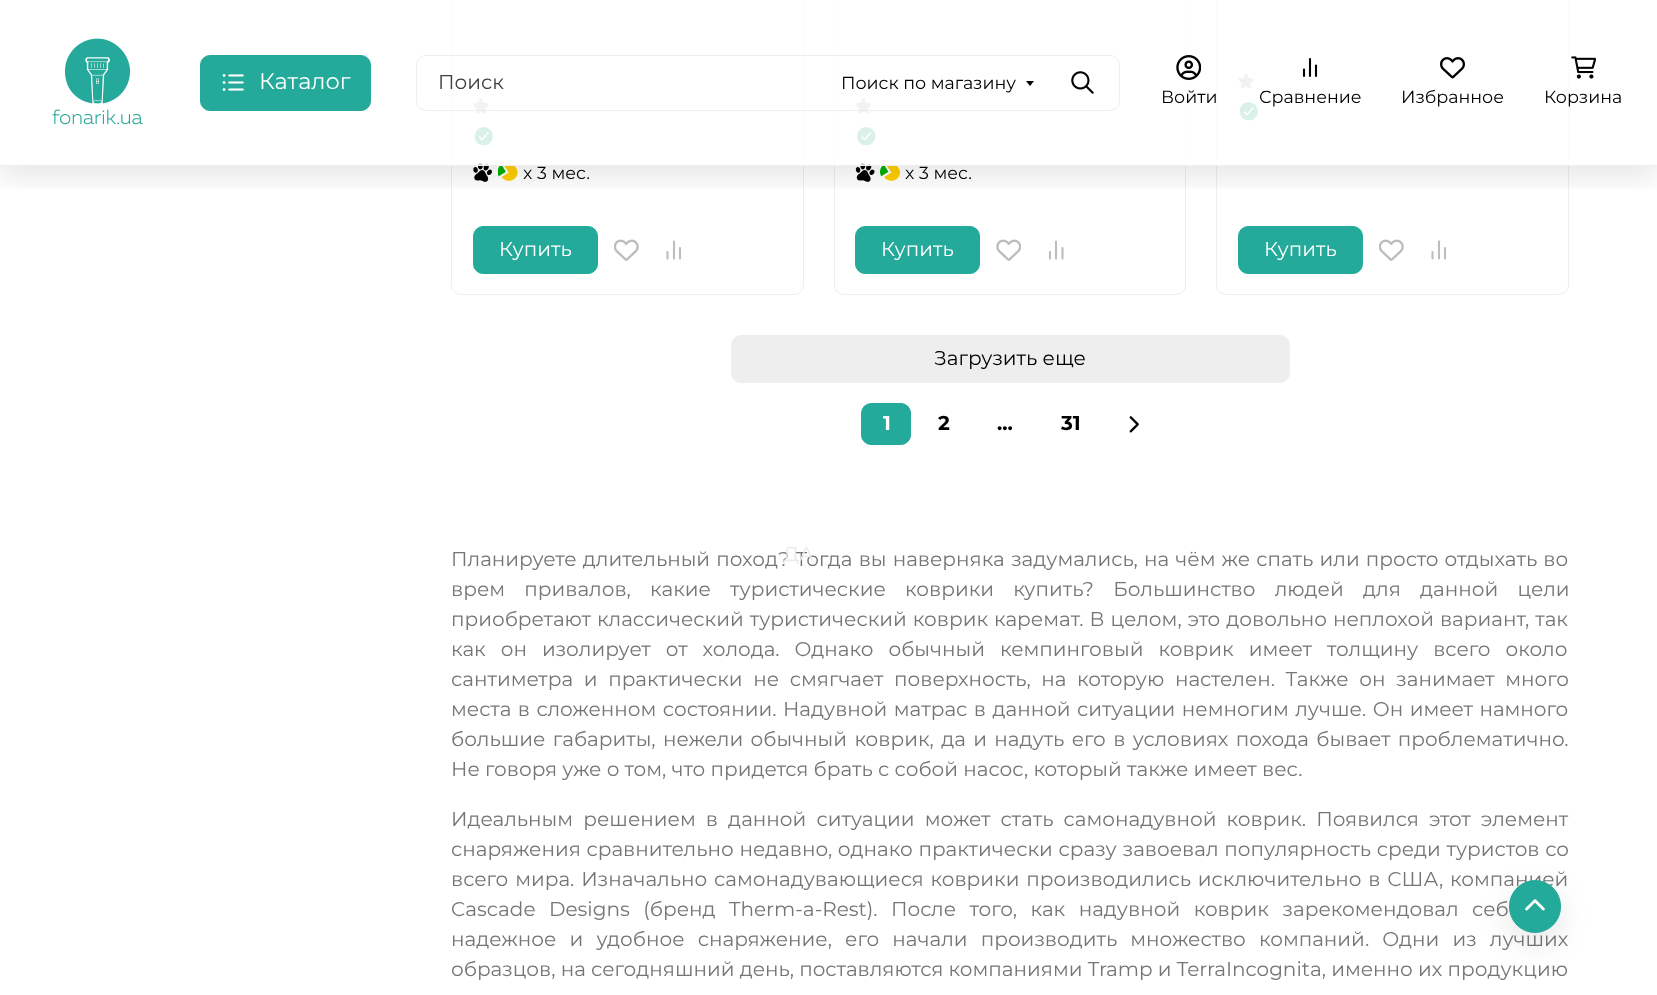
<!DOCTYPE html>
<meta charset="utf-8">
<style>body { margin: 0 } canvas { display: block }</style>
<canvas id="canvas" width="1657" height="995"></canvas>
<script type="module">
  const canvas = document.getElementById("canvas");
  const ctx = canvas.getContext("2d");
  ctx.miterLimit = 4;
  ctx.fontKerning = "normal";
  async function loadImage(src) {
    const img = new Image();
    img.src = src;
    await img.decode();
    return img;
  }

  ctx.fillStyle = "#ffffff";
  ctx.fillRect(0, 0, 1657, 995);
  ctx.beginPath();
  ctx.roundRect(451.5, -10.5, 352, 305, 9.5);
  ctx.strokeStyle = "#eeeeee";
  ctx.stroke();
  ctx.drawImage(await loadImage("img7.png"), 473, 98, 16, 16);
  ctx.drawImage(await loadImage("img8.png"), 474, 127, 19, 19);
  ctx.drawImage(await loadImage("img9.png"), 473, 163, 19, 19);
  ctx.drawImage(await loadImage("img10.png"), 498, 164, 20, 17);
  ctx.beginPath();
  ctx.roundRect(834.5, -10.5, 351, 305, 9.5);
  ctx.stroke();
  ctx.drawImage(await loadImage("img12.png"), 855, 98, 17, 16);
  ctx.drawImage(await loadImage("img13.png"), 857, 127, 19, 19);
  ctx.drawImage(await loadImage("img14.png"), 855, 163, 20, 19);
  ctx.drawImage(await loadImage("img15.png"), 880, 164, 20, 17);
  ctx.beginPath();
  ctx.roundRect(1216.5, -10.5, 352, 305, 9.5);
  ctx.stroke();
  ctx.drawImage(await loadImage("img7.png"), 1238, 73, 16, 16);
  ctx.drawImage(await loadImage("img8.png"), 1239, 102, 19, 19);
  ctx.save();
  ctx.beginPath();
  ctx.rect(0, 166, 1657, 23);
  ctx.clip();
  ctx.fillStyle = "rgba(0, 0, 0, 0.1)";
  ctx.filter = "blur(15px)";
  ctx.beginPath();
  ctx.rect(0, 10, 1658, 166);
  ctx.fill();
  ctx.filter = "none";
  ctx.restore();
  ctx.fillStyle = "rgba(255, 255, 255, 0.8)";
  ctx.fillRect(451, 0, 1118, 165);
  ctx.fillStyle = "#eeeeee";
  ctx.fillRect(0, 165, 1657, 1);
  ctx.drawImage(await loadImage("img1.png"), 52, 38, 91, 87);
  ctx.fillStyle = "#24aa9a";
  ctx.beginPath();
  ctx.roundRect(200.5, 55.5, 170, 55, 9.5);
  ctx.fill();
  ctx.strokeStyle = "#24aa9a";
  ctx.stroke();
  ctx.drawImage(await loadImage("img2.png"), 222, 74, 22, 17);
  ctx.font = "100 22.5px Montserrat";
  ctx.fillStyle = "#ffffff";
  ctx.fillText("Каталог", 259, 89);
  ctx.beginPath();
  ctx.roundRect(416.5, 55.5, 703, 55, 9.5);
  ctx.strokeStyle = "#eeeeee";
  ctx.stroke();
  ctx.font = "100 20px Montserrat";
  ctx.fillStyle = "#3f3f3f";
  ctx.fillText("Поиск", 438, 89);
  ctx.font = "100 17.5px Montserrat";
  ctx.fillStyle = "#000000";
  ctx.fillText("Поиск по магазину", 841, 89);
  ctx.beginPath();
  ctx.moveTo(1026, 81);
  ctx.lineTo(1034, 81);
  ctx.lineTo(1030, 86);
  ctx.closePath();
  ctx.fill();
  ctx.drawImage(await loadImage("img3.png"), 1071, 71, 23, 23);
  ctx.drawImage(await loadImage("img4.png"), 1176, 55, 25, 25);
  ctx.fillText("Войти", 1161, 103);
  ctx.beginPath();
  ctx.moveTo(1316, 76);
  ctx.lineTo(1316, 65.5);
  ctx.moveTo(1310, 76);
  ctx.lineTo(1310, 59);
  ctx.moveTo(1304, 76);
  ctx.lineTo(1304, 69.5);
  ctx.strokeStyle = "#000000";
  ctx.lineWidth = 2.1;
  ctx.lineCap = "round";
  ctx.lineJoin = "round";
  ctx.stroke();
  ctx.fillText("Сравнение", 1259, 103);
  ctx.drawImage(await loadImage("img5.png"), 1440, 57, 25, 22);
  ctx.fillText("Избранное", 1401, 103);
  ctx.drawImage(await loadImage("img6.png"), 1571, 56, 25, 23);
  ctx.fillText("Корзина", 1544, 103);
  ctx.fillText("x 3 мес.", 523, 179);
  ctx.fillStyle = "#24aa9a";
  ctx.beginPath();
  ctx.roundRect(473.5, 226.5, 124, 47, 9.5);
  ctx.fill();
  ctx.strokeStyle = "#24aa9a";
  ctx.lineWidth = 1;
  ctx.lineJoin = "miter";
  ctx.stroke();
  ctx.font = "100 20px Montserrat";
  ctx.fillStyle = "#ffffff";
  ctx.fillText("Купить", 499, 256);
  ctx.drawImage(await loadImage("img11.png"), 614, 239, 25, 22);
  ctx.beginPath();
  ctx.moveTo(680, 258.5);
  ctx.lineTo(680, 248);
  ctx.moveTo(674, 258.5);
  ctx.lineTo(674, 241.5);
  ctx.moveTo(667.5, 258.5);
  ctx.lineTo(667.5, 252);
  ctx.strokeStyle = "#bdbdbd";
  ctx.lineWidth = 2.1;
  ctx.lineJoin = "round";
  ctx.stroke();
  ctx.font = "100 17.5px Montserrat";
  ctx.fillStyle = "#000000";
  ctx.fillText("x 3 мес.", 905, 179);
  ctx.fillStyle = "#24aa9a";
  ctx.beginPath();
  ctx.roundRect(855.5, 226.5, 124, 47, 9.5);
  ctx.fill();
  ctx.strokeStyle = "#24aa9a";
  ctx.lineWidth = 1;
  ctx.lineJoin = "miter";
  ctx.stroke();
  ctx.font = "100 20px Montserrat";
  ctx.fillStyle = "#ffffff";
  ctx.fillText("Купить", 881, 256);
  ctx.drawImage(await loadImage("img16.png"), 996, 239, 25, 22);
  ctx.beginPath();
  ctx.moveTo(1062.5, 258.5);
  ctx.lineTo(1062.5, 248);
  ctx.moveTo(1056, 258.5);
  ctx.lineTo(1056, 241.5);
  ctx.moveTo(1050, 258.5);
  ctx.lineTo(1050, 252);
  ctx.strokeStyle = "#bdbdbd";
  ctx.lineWidth = 2.1;
  ctx.lineJoin = "round";
  ctx.stroke();
  ctx.fillStyle = "#24aa9a";
  ctx.beginPath();
  ctx.roundRect(1238.5, 226.5, 124, 47, 9.5);
  ctx.fill();
  ctx.strokeStyle = "#24aa9a";
  ctx.lineWidth = 1;
  ctx.lineJoin = "miter";
  ctx.stroke();
  ctx.fillStyle = "#ffffff";
  ctx.fillText("Купить", 1264, 256);
  ctx.drawImage(await loadImage("img11.png"), 1379, 239, 25, 22);
  ctx.beginPath();
  ctx.moveTo(1445, 258.5);
  ctx.lineTo(1445, 248);
  ctx.moveTo(1439, 258.5);
  ctx.lineTo(1439, 241.5);
  ctx.moveTo(1432.5, 258.5);
  ctx.lineTo(1432.5, 252);
  ctx.strokeStyle = "#bdbdbd";
  ctx.lineWidth = 2.1;
  ctx.lineJoin = "round";
  ctx.stroke();
  ctx.fillStyle = "#eeeeee";
  ctx.beginPath();
  ctx.roundRect(731.5, 335.5, 558, 47, 9.5);
  ctx.fill();
  ctx.strokeStyle = "#eeeeee";
  ctx.lineWidth = 1;
  ctx.lineJoin = "miter";
  ctx.stroke();
  ctx.fillStyle = "#000000";
  ctx.fillText("Загрузить еще", 934, 365);
  ctx.fillStyle = "#24aa9a";
  ctx.beginPath();
  ctx.roundRect(861.5, 403.5, 49, 41, 9.5);
  ctx.fill();
  ctx.strokeStyle = "#24aa9a";
  ctx.stroke();
  ctx.font = "100 20px 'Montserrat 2'";
  ctx.fillStyle = "#ffffff";
  ctx.fillText("1", 883, 430);
  ctx.fillStyle = "#000000";
  ctx.fillText("2", 938, 430);
  ctx.fillText("...", 997, 430);
  ctx.fillText("31", 1061, 430);
  ctx.drawImage(await loadImage("img17.png"), 1129, 416, 10, 17);
  ctx.wordSpacing = "0.9px";
  ctx.font = "100 20px Montserrat";
  ctx.fillStyle = "#757575";
  ctx.fillText("Планируете длительный поход? Тогда вы наверняка задумались, на чём же спать или просто отдыхать во", 451, 566);
  ctx.wordSpacing = "14px";
  ctx.fillText("врем привалов, какие туристические коврики купить? Большинство людей для данной цели", 451, 596);
  ctx.wordSpacing = "0.75px";
  ctx.fillText("приобретают классический туристический коврик каремат. В целом, это довольно неплохой вариант, так", 451, 626);
  ctx.wordSpacing = "9.75px";
  ctx.fillText("как он изолирует от холода. Однако обычный кемпинговый коврик имеет толщину всего около", 451, 656);
  ctx.wordSpacing = "5.4px";
  ctx.fillText("сантиметра и практически не смягчает поверхность, на которую настелен. Также он занимает много", 451, 686);
  ctx.wordSpacing = "1.25px";
  ctx.fillText("места в сложенном состоянии. Надувной матрас в данной ситуации немногим лучше. Он имеет намного", 451, 716);
  ctx.wordSpacing = "2.1px";
  ctx.fillText("большие габариты, нежели обычный коврик, да и надуть его в условиях похода бывает проблематично.", 451, 746);
  ctx.wordSpacing = "0px";
  ctx.fillText("Не говоря уже о том, что придется брать с собой насос, который также имеет вес.", 451, 776);
  ctx.wordSpacing = "4.9px";
  ctx.fillText("Идеальным решением в данной ситуации может стать самонадувной коврик. Появился этот элемент", 451, 826);
  ctx.wordSpacing = "0.5px";
  ctx.fillText("снаряжения сравнительно недавно, однако практически сразу завоевал популярность среди туристов со", 451, 856);
  ctx.wordSpacing = "1.6px";
  ctx.fillText("всего мира. Изначально самонадувающиеся коврики производились исключительно в США, компанией", 451, 886);
  ctx.wordSpacing = "8.25px";
  ctx.fillText("Cascade Designs (бренд Therm-a-Rest). После того, как надувной коврик зарекомендовал себ", 451, 916);
  ctx.wordSpacing = "7.9px";
  ctx.fillText("надежное и удобное снаряжение, его начали производить множество компаний. Одни из лучших", 451, 946);
  ctx.wordSpacing = "0px";
  ctx.fillText("образцов, на сегодняшний день, поставляются компаниями Tramp и TerraIncognita, именно их продукцию", 451, 976);
  ctx.fillStyle = "#e9e9e9";
  ctx.fillText("ДА", 783, 561);
  ctx.fillStyle = "rgba(0, 0, 0, 0.1)";
  ctx.filter = "blur(15px)";
  ctx.beginPath();
  ctx.roundRect(1509, 890, 52, 53, 26);
  ctx.fill();
  ctx.filter = "none";
  ctx.fillStyle = "#24aa9a";
  ctx.beginPath();
  ctx.roundRect(1509.5, 880.5, 51, 52, 25.5);
  ctx.fill();
  ctx.stroke();
  ctx.drawImage(await loadImage("img18.png"), 1525, 899, 20, 12);
</script>
